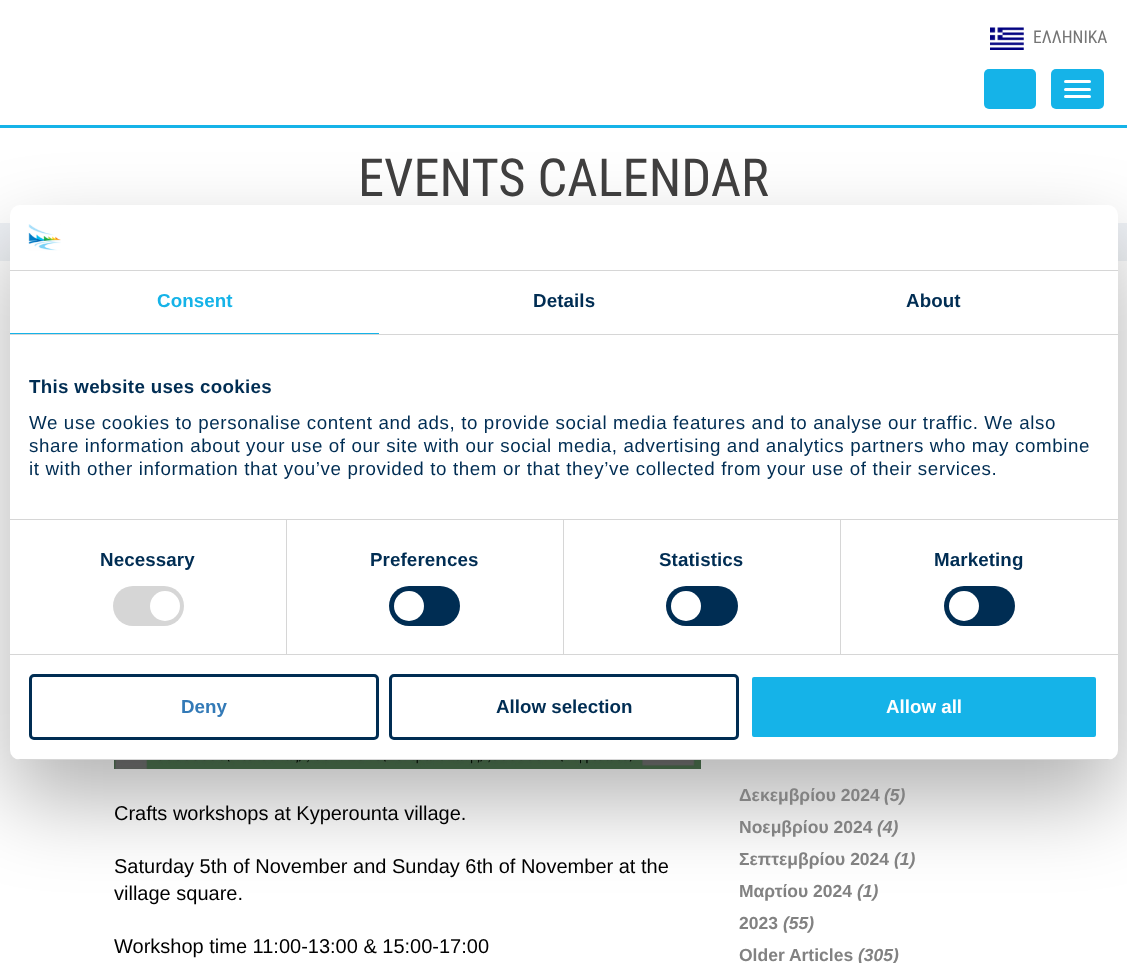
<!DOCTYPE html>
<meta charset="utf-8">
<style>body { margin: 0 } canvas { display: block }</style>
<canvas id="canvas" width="1127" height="963"></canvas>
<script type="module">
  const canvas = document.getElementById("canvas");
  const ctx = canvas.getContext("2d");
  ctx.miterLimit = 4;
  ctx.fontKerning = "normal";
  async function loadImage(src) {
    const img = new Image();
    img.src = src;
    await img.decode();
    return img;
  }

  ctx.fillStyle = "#ffffff";
  ctx.fillRect(0, 0, 1127, 963);
  ctx.fillStyle = "#15b3e8";
  ctx.fillRect(0, 125, 1127, 3);
  ctx.drawImage(await loadImage("img1.png"), 990, 27, 34, 23);
  ctx.font = "17.5px Roboto Condensed";
  ctx.fillStyle = "#757575";
  ctx.fillText("ΕΛΛΗΝΙΚΑ", 1033, 43);
  ctx.fillStyle = "#15b3e8";
  ctx.beginPath();
  ctx.roundRect(984, 69, 52, 40, 5);
  ctx.fill();
  ctx.beginPath();
  ctx.roundRect(1051, 69, 53, 40, 5);
  ctx.fill();
  ctx.fillStyle = "#ffffff";
  ctx.beginPath();
  ctx.roundRect(1064, 80, 27, 3, 1.5);
  ctx.fill();
  ctx.beginPath();
  ctx.roundRect(1064, 88, 27, 3, 1.5);
  ctx.fill();
  ctx.beginPath();
  ctx.roundRect(1064, 95, 27, 3, 1.5);
  ctx.fill();
  ctx.font = "52.5px Roboto Condensed";
  ctx.fillStyle = "#414040";
  ctx.fillText("EVENTS CALENDAR", 358, 196);
  ctx.fillStyle = "#eff2f6";
  ctx.fillRect(0, 223, 1127, 38);
  ctx.drawImage(await loadImage("img3.png"), 114, 760, 587, 9);
  ctx.fillStyle = "rgba(0, 0, 0, 0.55)";
  ctx.fillRect(114, 760, 587, 9);
  ctx.fillStyle = "rgba(0, 0, 0, 0.3)";
  ctx.filter = "blur(42.5px)";
  ctx.beginPath();
  ctx.roundRect(10, 245, 1108, 555, 10);
  ctx.fill();
  ctx.filter = "none";
  ctx.fillStyle = "#ffffff";
  ctx.beginPath();
  ctx.roundRect(10, 205, 1108, 555, 10);
  ctx.fill();
  ctx.fillStyle = "#d6d6d6";
  ctx.fillRect(10, 270, 1108, 1);
  ctx.drawImage(await loadImage("img2.png"), 28, 224, 33, 27);
  ctx.fillRect(10, 334, 1108, 1);
  ctx.fillStyle = "#15b3e8";
  ctx.fillRect(10, 333, 369, 1);
  ctx.letterSpacing = "0.1px";
  ctx.font = "bold 18.75px Liberation Sans";
  ctx.fillText("Consent", 157, 307);
  ctx.fillStyle = "#002d53";
  ctx.fillText("Details", 533, 307);
  ctx.fillText("About", 906, 307);
  ctx.fillStyle = "#d6d6d6";
  ctx.fillRect(10, 519, 1108, 1);
  ctx.letterSpacing = "0.3px";
  ctx.fillStyle = "#002d53";
  ctx.fillText("This website uses cookies", 29, 393);
  ctx.letterSpacing = "0.62px";
  ctx.font = "18.75px Liberation Sans";
  ctx.fillText("We use cookies to personalise content and ads, to provide social media features and to analyse our traffic. We also", 29, 429);
  ctx.fillText("share information about your use of our site with our social media, advertising and analytics partners who may combine", 29, 452);
  ctx.fillText("it with other information that you’ve provided to them or that they’ve collected from your use of their services.", 29, 475);
  ctx.fillStyle = "#d6d6d6";
  ctx.fillRect(10, 654, 1108, 1);
  ctx.fillRect(286, 520, 1, 134);
  ctx.letterSpacing = "0.1px";
  ctx.font = "bold 18.75px Liberation Sans";
  ctx.fillStyle = "#002d53";
  ctx.fillText("Necessary", 100, 566);
  ctx.fillStyle = "#d6d6d6";
  ctx.beginPath();
  ctx.roundRect(113, 586, 71, 40, 20);
  ctx.fill();
  ctx.fillStyle = "#ffffff";
  ctx.beginPath();
  ctx.arc(165, 606, 15, 0, Math.PI * 2);
  ctx.fill();
  ctx.fillStyle = "#d6d6d6";
  ctx.fillRect(563, 520, 1, 134);
  ctx.fillStyle = "#002d53";
  ctx.fillText("Preferences", 370, 566);
  ctx.beginPath();
  ctx.roundRect(389, 586, 71, 40, 20);
  ctx.fill();
  ctx.fillStyle = "#ffffff";
  ctx.beginPath();
  ctx.arc(409, 606, 15, 0, Math.PI * 2);
  ctx.fill();
  ctx.fillStyle = "#d6d6d6";
  ctx.fillRect(840, 520, 1, 134);
  ctx.fillStyle = "#002d53";
  ctx.fillText("Statistics", 659, 566);
  ctx.beginPath();
  ctx.roundRect(666, 586, 72, 40, 20);
  ctx.fill();
  ctx.fillStyle = "#ffffff";
  ctx.beginPath();
  ctx.arc(686, 606, 15, 0, Math.PI * 2);
  ctx.fill();
  ctx.fillStyle = "#002d53";
  ctx.fillText("Marketing", 934, 566);
  ctx.beginPath();
  ctx.roundRect(944, 586, 71, 40, 20);
  ctx.fill();
  ctx.fillStyle = "#ffffff";
  ctx.beginPath();
  ctx.arc(964, 606, 15, 0, Math.PI * 2);
  ctx.fill();
  ctx.save();
  ctx.beginPath();
  ctx.roundRect(10, 205, 1108, 555, 10);
  ctx.clip();
  ctx.fillStyle = "#d6d6d6";
  ctx.fillRect(10, 759, 1108, 1);
  ctx.restore();
  ctx.beginPath();
  ctx.roundRect(30.5, 675.5, 347, 63, 3.5);
  ctx.strokeStyle = "#002d53";
  ctx.lineWidth = 3;
  ctx.stroke();
  ctx.letterSpacing = "0px";
  ctx.fillStyle = "#337ab7";
  ctx.fillText("Deny", 181, 713);
  ctx.beginPath();
  ctx.roundRect(390.5, 675.5, 347, 63, 3.5);
  ctx.stroke();
  ctx.fillStyle = "#002d53";
  ctx.fillText("Allow selection", 496, 713);
  ctx.fillStyle = "#15b3e8";
  ctx.beginPath();
  ctx.roundRect(750.5, 675.5, 347, 63, 3.5);
  ctx.fill();
  ctx.strokeStyle = "#ffffff";
  ctx.stroke();
  ctx.fillStyle = "#ffffff";
  ctx.fillText("Allow all", 886, 713);
  ctx.font = "20px Liberation Sans";
  ctx.fillStyle = "#000000";
  ctx.fillText("Crafts workshops at Kyperounta village.", 114, 820);
  ctx.fillText("Saturday 5th of November and Sunday 6th of November at the", 114, 873);
  ctx.fillText("village square.", 114, 900);
  ctx.fillText("Workshop time 11:00-13:00 & 15:00-17:00", 114, 953);
  ctx.font = "bold 17.5px Liberation Sans";
  ctx.fillStyle = "#828282";
  ctx.fillText("Δεκεμβρίου 2024", 739, 801);
  ctx.font = "italic bold 17.5px Liberation Sans";
  ctx.fillText("(5)", 884, 801);
  ctx.font = "bold 17.5px Liberation Sans";
  ctx.fillText("Νοεμβρίου 2024", 739, 833);
  ctx.font = "italic bold 17.5px Liberation Sans";
  ctx.fillText("(4)", 877, 833);
  ctx.font = "bold 17.5px Liberation Sans";
  ctx.fillText("Σεπτεμβρίου 2024", 739, 865);
  ctx.font = "italic bold 17.5px Liberation Sans";
  ctx.fillText("(1)", 894, 865);
  ctx.font = "bold 17.5px Liberation Sans";
  ctx.fillText("Μαρτίου 2024", 739, 897);
  ctx.font = "italic bold 17.5px Liberation Sans";
  ctx.fillText("(1)", 857, 897);
  ctx.font = "bold 17.5px Liberation Sans";
  ctx.fillText("2023", 739, 929);
  ctx.font = "italic bold 17.5px Liberation Sans";
  ctx.fillText("(55)", 783, 929);
  ctx.font = "bold 17.5px Liberation Sans";
  ctx.fillText("Older Articles", 739, 961);
  ctx.font = "italic bold 17.5px Liberation Sans";
  ctx.fillText("(305)", 858, 961);
</script>
